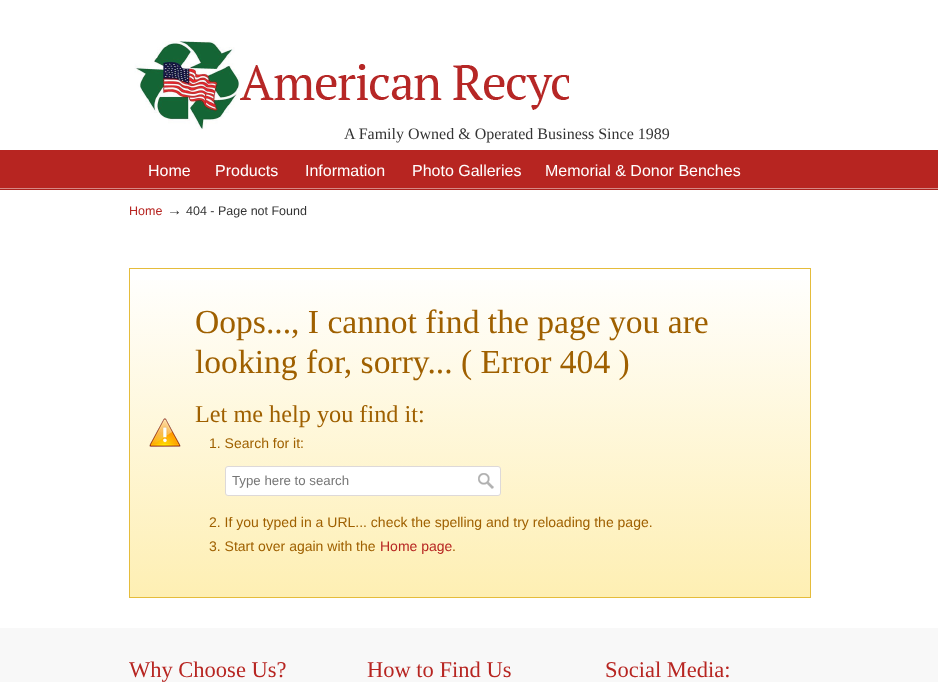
<!DOCTYPE html>
<meta charset="utf-8">
<style>body { margin: 0 } canvas { display: block }</style>
<canvas id="canvas" width="938" height="682"></canvas>
<script type="module">
  const canvas = document.getElementById("canvas");
  const ctx = canvas.getContext("2d");
  ctx.miterLimit = 4;
  ctx.fontKerning = "normal";
  async function loadImage(src) {
    const img = new Image();
    img.src = src;
    await img.decode();
    return img;
  }
  let gradient;

  ctx.fillStyle = "#ffffff";
  ctx.fillRect(0, 0, 938, 682);
  ctx.font = "16px Liberation Serif";
  ctx.fillStyle = "#333333";
  ctx.fillText("A Family Owned & Operated Business Since 1989", 344, 139);
  ctx.drawImage(await loadImage("img1.png"), 134, 41, 435, 89);
  ctx.fillStyle = "#b72521";
  ctx.fillRect(0, 150, 938, 40);
  ctx.drawImage(await loadImage("img2.png"), 0, 188, 938, 2);
  ctx.font = "16px Liberation Sans";
  ctx.fillStyle = "#ffffff";
  ctx.fillText("Home", 148, 176);
  ctx.fillText("Products", 215, 176);
  ctx.fillText("Information", 305, 176);
  ctx.fillText("Photo Galleries", 412, 176);
  ctx.fillText("Memorial & Donor Benches", 545, 176);
  ctx.font = "12.5px Liberation Sans";
  ctx.fillStyle = "#b72521";
  ctx.fillText("Home", 129, 215);
  ctx.font = "15px Liberation Sans";
  ctx.fillStyle = "#333333";
  ctx.fillText("→", 167, 215);
  ctx.font = "12.5px Liberation Sans";
  ctx.fillText("404 - Page not Found", 186, 215);
  gradient = ctx.createLinearGradient(470, 269, 470, 597);
  gradient.addColorStop(0, "#ffffff");
  gradient.addColorStop(1, "#feefb3");
  ctx.fillStyle = gradient;
  ctx.fillRect(130, 280, 680, 317);
  ctx.strokeStyle = "#e5bc3b";
  ctx.strokeRect(129.5, 268.5, 681, 329);
  ctx.drawImage(await loadImage("img3.png"), 149, 418, 32, 29);
  ctx.font = "33.6px Liberation Serif";
  ctx.fillStyle = "#9f6000";
  ctx.fillText("Oops..., I cannot find the page you are", 195, 333);
  ctx.fillText("looking for, sorry... ( Error 404 )", 195, 373);
  ctx.font = "24.25px Liberation Serif";
  ctx.fillText("Let me help you find it:", 195, 422);
  ctx.font = "14px Liberation Sans";
  ctx.fillText("1. Search for it:", 209, 448);
  ctx.fillStyle = "#ffffff";
  ctx.beginPath();
  ctx.roundRect(225.5, 466.5, 275, 29, 2.5);
  ctx.fill();
  ctx.strokeStyle = "#ddd9d9";
  ctx.stroke();
  ctx.font = "13.25px Liberation Sans";
  ctx.fillStyle = "#757575";
  ctx.fillText("Type here to search", 232, 485);
  ctx.drawImage(await loadImage("img4.png"), 478, 473, 16, 16);
  ctx.font = "14px Liberation Sans";
  ctx.fillStyle = "#9f6000";
  ctx.fillText("2. If you typed in a URL... check the spelling and try reloading the page.", 209, 527);
  ctx.fillText("3. Start over again with the", 209, 551);
  ctx.fillStyle = "#b72521";
  ctx.fillText("Home page", 380, 551);
  ctx.fillStyle = "#9f6000";
  ctx.fillText(".", 452, 551);
  ctx.fillStyle = "#f8f8f8";
  ctx.fillRect(0, 628, 938, 54);
  ctx.font = "22.5px Liberation Serif";
  ctx.fillStyle = "#b72521";
  ctx.fillText("Why Choose Us?", 129, 677);
  ctx.fillText("How to Find Us", 367, 677);
  ctx.fillText("Social Media:", 605, 677);
</script>
